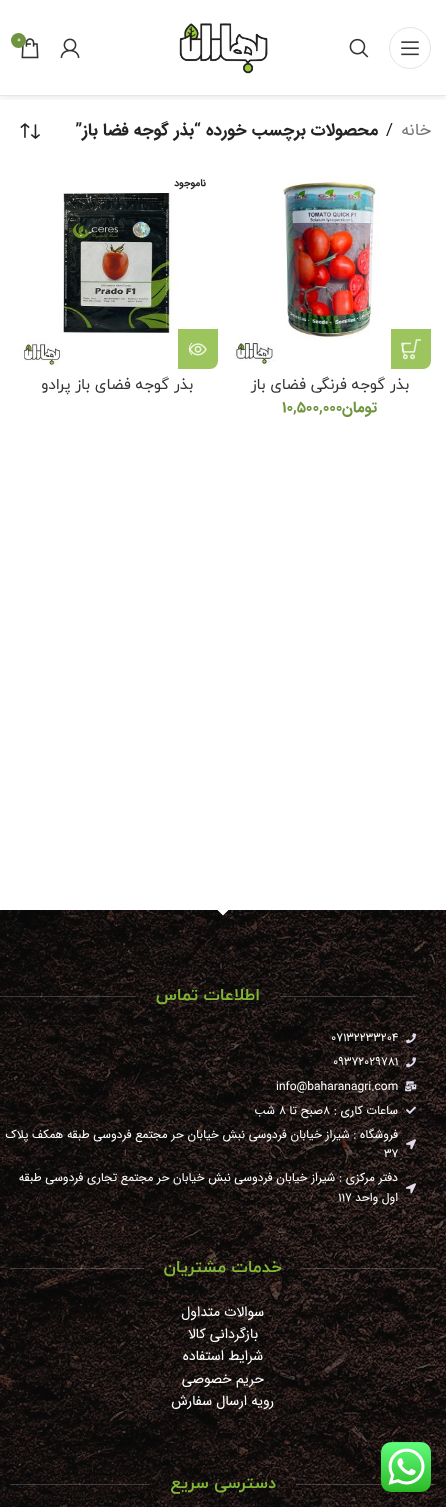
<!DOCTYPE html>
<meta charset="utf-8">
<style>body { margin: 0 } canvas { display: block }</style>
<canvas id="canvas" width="446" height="1507"></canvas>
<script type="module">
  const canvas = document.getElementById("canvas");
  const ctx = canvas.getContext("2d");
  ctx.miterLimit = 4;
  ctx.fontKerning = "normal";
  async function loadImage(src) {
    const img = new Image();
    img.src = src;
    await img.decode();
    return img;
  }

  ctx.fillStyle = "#ffffff";
  ctx.fillRect(0, 0, 446, 1507);
  ctx.save();
  ctx.beginPath();
  ctx.rect(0, 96, 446, 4);
  ctx.clip();
  ctx.fillStyle = "rgba(0, 0, 0, 0.1)";
  ctx.filter = "blur(4px)";
  ctx.beginPath();
  ctx.rect(0, 1, 446, 96);
  ctx.fill();
  ctx.filter = "none";
  ctx.restore();
  ctx.fillStyle = "#e6e6e6";
  ctx.fillRect(0, 95, 446, 1);
  ctx.beginPath();
  ctx.arc(410, 48, 20.5, 0, Math.PI * 2);
  ctx.strokeStyle = "#e4e4e4";
  ctx.stroke();
  ctx.drawImage(await loadImage("img1.png"), 401, 41, 18, 15);
  ctx.drawImage(await loadImage("img2.png"), 349, 38, 20, 20);
  ctx.drawImage(await loadImage("img3.png"), 179, 23, 89, 51);
  ctx.drawImage(await loadImage("img4.png"), 60, 38, 20, 20);
  ctx.drawImage(await loadImage("img5.png"), 21, 38, 18, 21);
  ctx.fillStyle = "#6f943f";
  ctx.beginPath();
  ctx.arc(18.5, 40.5, 7.5, 0, Math.PI * 2);
  ctx.fill();
  ctx.font = "9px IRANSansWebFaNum";
  ctx.fillStyle = "#ffffff";
  ctx.fillText("0", 17, 42);
  ctx.direction = "rtl";
  ctx.font = "17px IRANSansWebFaNum";
  ctx.fillStyle = "#767676";
  ctx.fillText("خانه", 431, 135);
  ctx.direction = "ltr";
  ctx.fillStyle = "#161616";
  ctx.fillText("/", 386, 135);
  ctx.direction = "rtl";
  ctx.font = "bold 17px IRANSansWebFaNum";
  ctx.fillStyle = "#242424";
  ctx.fillText("محصولات برچسب خورده", 378, 135);
  ctx.fillText("“بذر گوجه فضا باز”", 201, 135);
  ctx.drawImage(await loadImage("img6.png"), 20, 123, 20, 16);
  ctx.fillStyle = "#9cc55d";
  ctx.beginPath();
  ctx.roundRect(391, 329, 40, 40, [0, 0, 8, 0]);
  ctx.fill();
  ctx.drawImage(await loadImage("img7.png"), 401, 339, 20, 21);
  ctx.beginPath();
  ctx.moveTo(405, 355);
  ctx.bezierCurveTo(401.5, 351.5, 401.5, 346.5, 405, 343);
  ctx.strokeStyle = "#ffffff";
  ctx.stroke();
  ctx.drawImage(await loadImage("img8.png"), 234, 177, 146, 192);
  ctx.font = "15.25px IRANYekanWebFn";
  ctx.fillStyle = "#333333";
  ctx.fillText("بذر گوجه فرنگی فضای باز", 409, 389);
  ctx.font = "bold 15.25px IRANSansWebFaNum";
  ctx.fillStyle = "#6f943f";
  ctx.fillText("تومان", 377, 412);
  ctx.direction = "ltr";
  ctx.fillText("۱۰,۵۰۰,۰۰۰", 282, 412);
  ctx.direction = "rtl";
  ctx.font = "bold 10px IRANSansWebFaNum";
  ctx.fillStyle = "#242424";
  ctx.fillText("ناموجود", 206, 186);
  ctx.drawImage(await loadImage("img9.png"), 20, 193, 158, 174);
  ctx.fillStyle = "#9cc55d";
  ctx.beginPath();
  ctx.roundRect(178, 329, 40, 40, [0, 0, 8, 0]);
  ctx.fill();
  ctx.drawImage(await loadImage("img10.png"), 189, 343, 18, 13);
  ctx.beginPath();
  ctx.moveTo(192, 355);
  ctx.bezierCurveTo(188.5, 351.5, 188.5, 346.5, 192, 343);
  ctx.stroke();
  ctx.font = "15.25px IRANYekanWebFn";
  ctx.fillStyle = "#333333";
  ctx.fillText("بذر گوجه فضای باز پرادو", 193, 389);
  ctx.drawImage(await loadImage("img11.png"), 0, 910, 446, 597);
  ctx.fillStyle = "#ffffff";
  ctx.beginPath();
  ctx.moveTo(223, 915.5);
  ctx.lineTo(216.5, 909);
  ctx.lineTo(229.5, 909);
  ctx.closePath();
  ctx.fill();
  ctx.fillStyle = "rgba(255, 255, 255, 0.2)";
  ctx.fillRect(280, 996, 136, 1);
  ctx.font = "bold 17px IRANYekanWebFn";
  ctx.fillStyle = "#82b735";
  ctx.fillText("اطلاعات تماس", 260, 1000);
  ctx.fillStyle = "rgba(255, 255, 255, 0.2)";
  ctx.fillRect(0, 996, 136, 1);
  ctx.drawImage(await loadImage("img12.png"), 406, 1033, 10, 11);
  ctx.direction = "ltr";
  ctx.font = "12px IRANSansWebFaNum";
  ctx.fillStyle = "#ffffff";
  ctx.fillText("07132233204", 331, 1041);
  ctx.drawImage(await loadImage("img13.png"), 406, 1057, 10, 11);
  ctx.fillText("09372029781", 333, 1065);
  ctx.drawImage(await loadImage("img14.png"), 405, 1081, 12, 11);
  ctx.fillText("info@baharanagri.com", 276, 1090);
  ctx.drawImage(await loadImage("img15.png"), 406, 1106, 10, 8);
  ctx.direction = "rtl";
  ctx.fillText("ساعات کاری :", 398, 1114);
  ctx.direction = "ltr";
  ctx.fillText("8", 323, 1114);
  ctx.direction = "rtl";
  ctx.fillText("صبح تا", 323, 1114);
  ctx.direction = "ltr";
  ctx.fillText("8", 279, 1114);
  ctx.direction = "rtl";
  ctx.fillText("شب", 275, 1114);
  ctx.drawImage(await loadImage("img16.png"), 406, 1139, 10, 11);
  ctx.fillText("فروشگاه : شیراز خیابان فردوسی نبش خیابان حر مجتمع فردوسی طبقه همکف پلاک", 398, 1138);
  ctx.direction = "ltr";
  ctx.fillText("37", 384, 1157);
  ctx.drawImage(await loadImage("img17.png"), 406, 1183, 10, 11);
  ctx.direction = "rtl";
  ctx.fillText("دفتر مرکزی : شیراز خیابان فردوسی نبش خیابان حر مجتمع تجاری فردوسی طبقه", 398, 1181);
  ctx.fillText("اول واحد", 398, 1201);
  ctx.direction = "ltr";
  ctx.fillText("117", 338, 1201);
  ctx.fillStyle = "rgba(255, 255, 255, 0.2)";
  ctx.fillRect(302, 1268, 134, 1);
  ctx.direction = "rtl";
  ctx.font = "bold 17px IRANYekanWebFn";
  ctx.fillStyle = "#82b735";
  ctx.fillText("خدمات مشتریان", 282, 1272);
  ctx.fillStyle = "rgba(255, 255, 255, 0.2)";
  ctx.fillRect(10, 1268, 134, 1);
  ctx.font = "14px IRANSansWebFaNum";
  ctx.fillStyle = "#ffffff";
  ctx.fillText("سوالات متداول", 264, 1316);
  ctx.fillText("بازگردانی کالا", 258, 1338);
  ctx.fillText("شرایط استفاده", 263, 1360);
  ctx.fillText("حریم خصوصی", 264, 1383);
  ctx.fillText("رویه ارسال سفارش", 274, 1405);
  ctx.fillStyle = "rgba(255, 255, 255, 0.2)";
  ctx.fillRect(296, 1484, 140, 1);
  ctx.font = "bold 17px IRANYekanWebFn";
  ctx.fillStyle = "#82b735";
  ctx.fillText("دسترسی سریع", 276, 1488);
  ctx.fillStyle = "rgba(255, 255, 255, 0.2)";
  ctx.fillRect(10, 1484, 140, 1);
  ctx.drawImage(await loadImage("img18.png"), 381, 1442, 50, 50);
</script>
